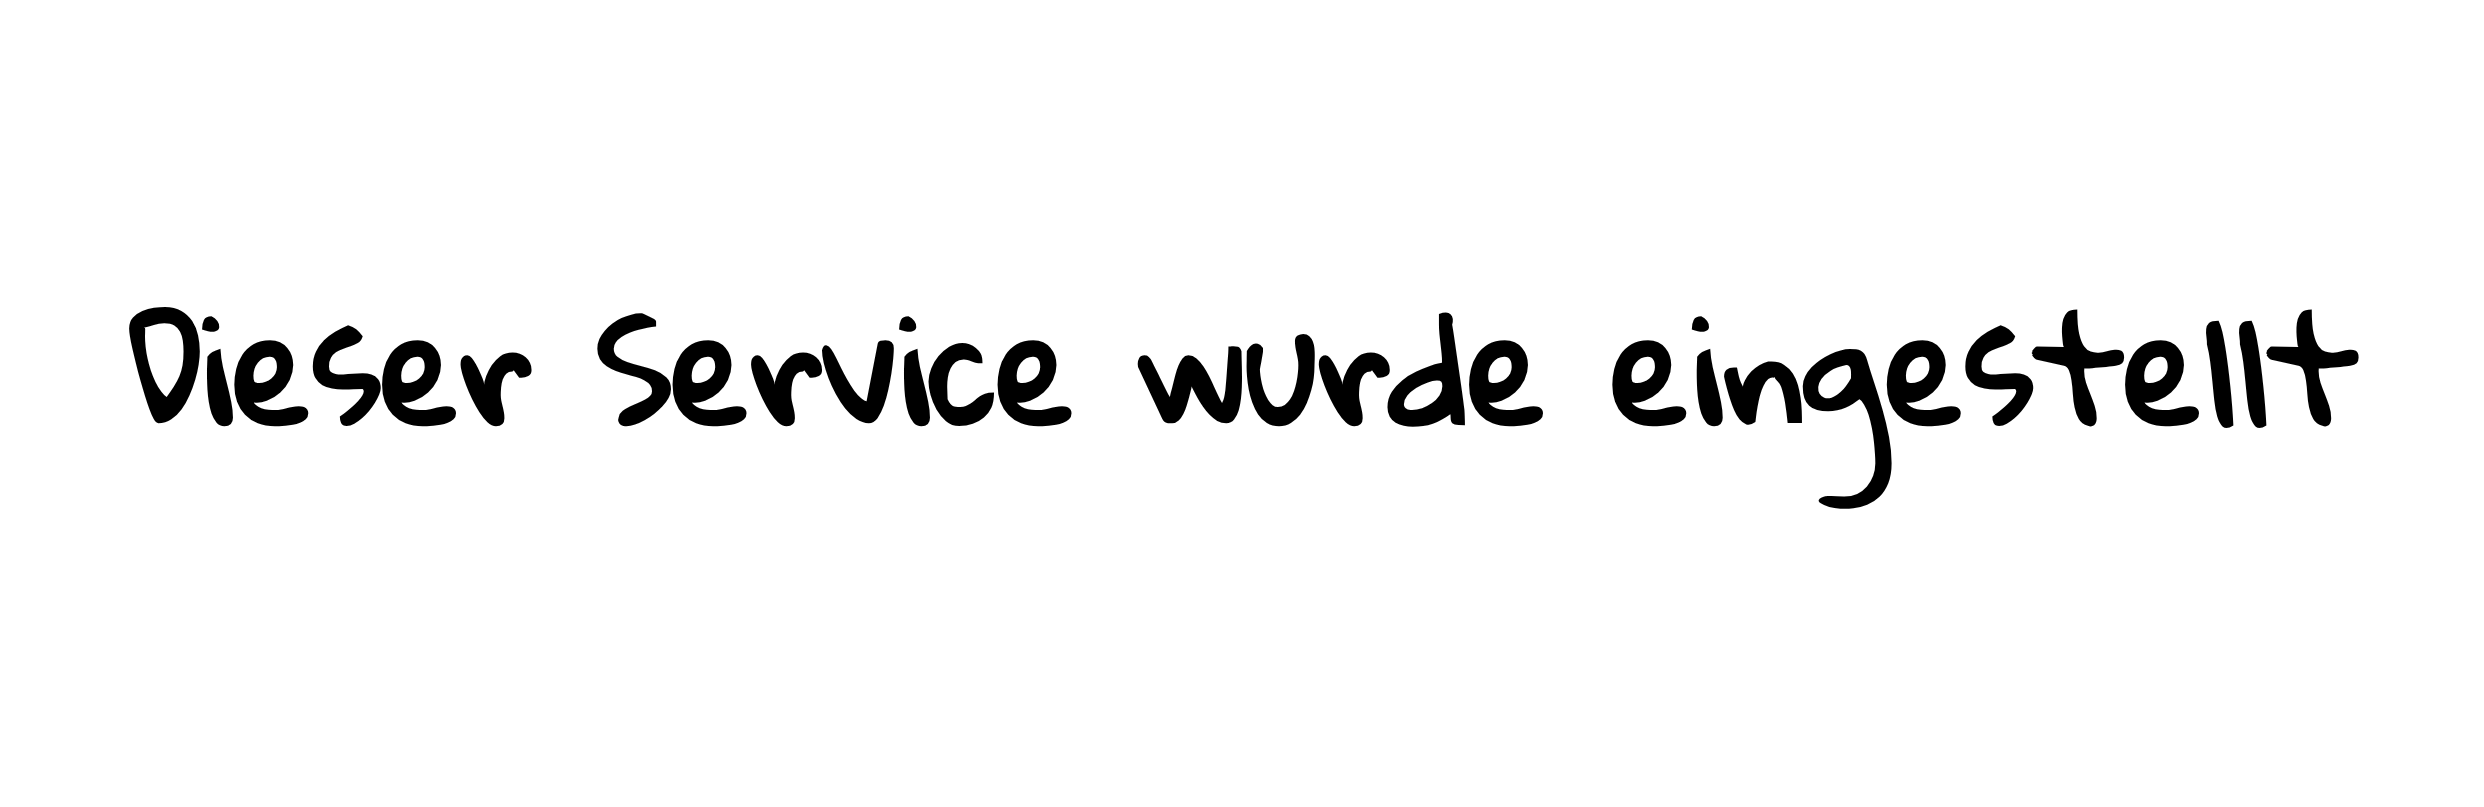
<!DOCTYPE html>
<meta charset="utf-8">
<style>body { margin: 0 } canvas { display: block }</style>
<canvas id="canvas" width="2484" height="807"></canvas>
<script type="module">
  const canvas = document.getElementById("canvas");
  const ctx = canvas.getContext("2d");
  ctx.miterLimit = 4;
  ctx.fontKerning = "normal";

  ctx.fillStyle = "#ffffff";
  ctx.fillRect(0, 0, 2484, 807);
  ctx.font = "bold 144px Gloria Hallelujah";
  ctx.fillStyle = "#000000";
  ctx.fillText("Dieser Service wurde eingestellt", 126, 426);
</script>
